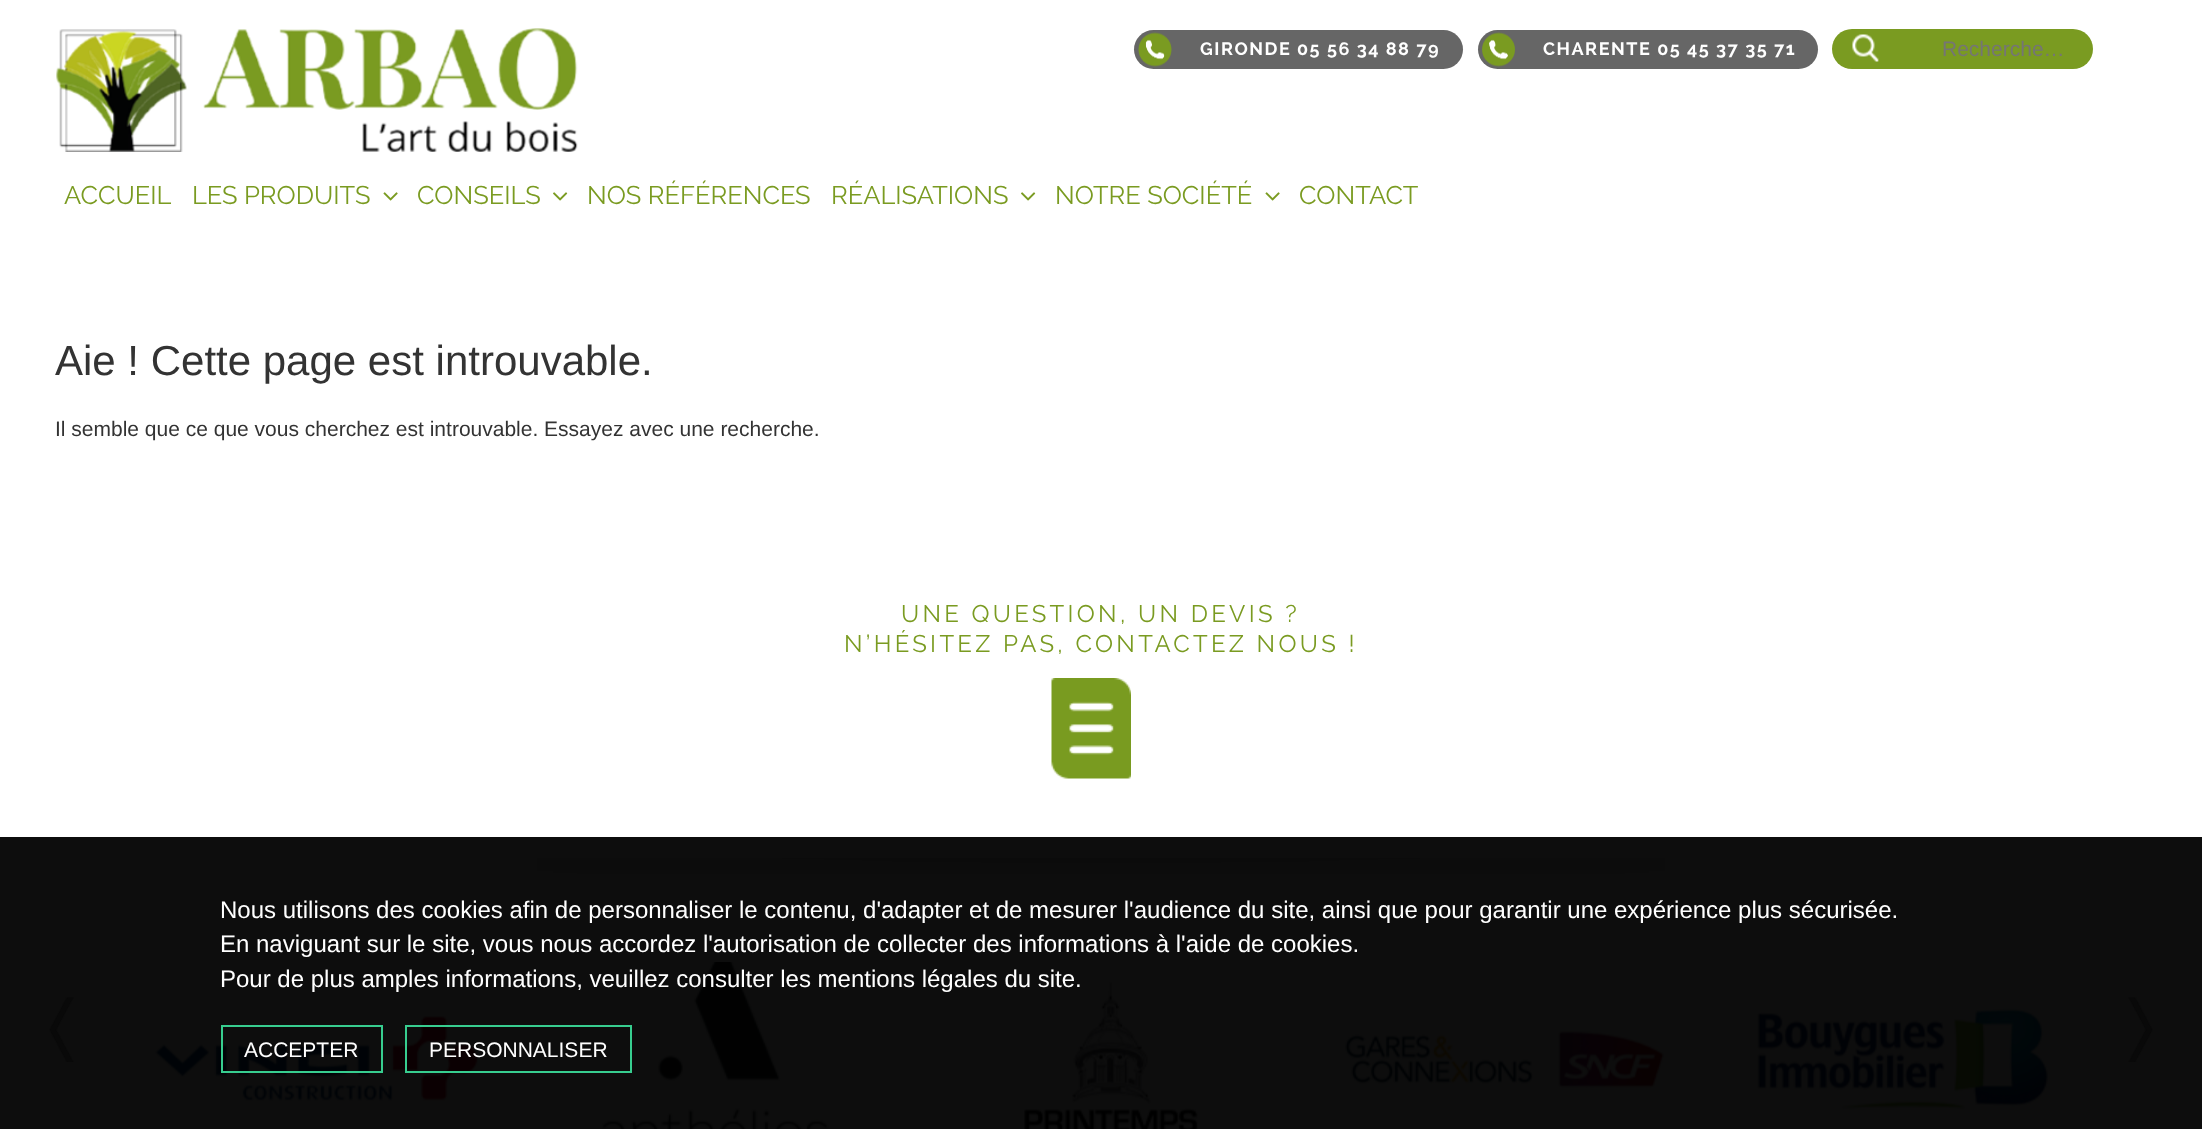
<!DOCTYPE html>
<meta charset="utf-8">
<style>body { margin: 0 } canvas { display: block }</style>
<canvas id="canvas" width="2202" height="1129"></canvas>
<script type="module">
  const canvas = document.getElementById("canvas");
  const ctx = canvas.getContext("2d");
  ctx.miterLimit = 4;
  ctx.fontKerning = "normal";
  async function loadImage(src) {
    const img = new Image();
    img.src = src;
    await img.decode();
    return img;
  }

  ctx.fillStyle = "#ffffff";
  ctx.fillRect(0, 0, 2202, 1129);
  ctx.fillStyle = "#0d0d0d";
  ctx.fillRect(0, 837, 2202, 292);
  ctx.drawImage(await loadImage("img1.png"), 56, 28, 522, 124);
  ctx.fillStyle = "#666666";
  ctx.beginPath();
  ctx.roundRect(1134, 30, 329, 39, 19.5);
  ctx.fill();
  ctx.drawImage(await loadImage("img2.png"), 1138, 32, 34, 35);
  ctx.letterSpacing = "1.5px";
  ctx.font = "bold 18px Raleway";
  ctx.fillStyle = "#ffffff";
  ctx.fillText("GIRONDE 05 56 34 88 79", 1200, 55);
  ctx.fillStyle = "#666666";
  ctx.beginPath();
  ctx.roundRect(1478, 30, 340, 39, 19.5);
  ctx.fill();
  ctx.drawImage(await loadImage("img3.png"), 1482, 32, 33, 35);
  ctx.fillStyle = "#ffffff";
  ctx.fillText("CHARENTE 05 45 37 35 71", 1543, 55);
  ctx.fillStyle = "#7a9b21";
  ctx.beginPath();
  ctx.roundRect(1832, 29, 261, 40, 20);
  ctx.fill();
  ctx.drawImage(await loadImage("img4.png"), 1852, 34, 27, 28);
  ctx.letterSpacing = "0px";
  ctx.font = "21px Liberation Sans";
  ctx.fillStyle = "#757575";
  ctx.fillText("Recherche…", 1942, 56);
  ctx.font = "25.5px Raleway";
  ctx.fillStyle = "#7a9b21";
  ctx.fillText("ACCUEIL", 64, 204);
  ctx.fillText("LES PRODUITS", 192, 204);
  ctx.drawImage(await loadImage("img5.png"), 383, 192, 15, 9);
  ctx.fillText("CONSEILS", 417, 204);
  ctx.drawImage(await loadImage("img6.png"), 553, 192, 15, 9);
  ctx.fillText("NOS RÉFÉRENCES", 587, 204);
  ctx.fillText("RÉALISATIONS", 831, 204);
  ctx.drawImage(await loadImage("img6.png"), 1021, 192, 15, 9);
  ctx.fillText("NOTRE SOCIÉTÉ", 1055, 204);
  ctx.drawImage(await loadImage("img5.png"), 1265, 192, 15, 9);
  ctx.fillText("CONTACT", 1299, 204);
  ctx.font = "42px Liberation Sans";
  ctx.fillStyle = "#333333";
  ctx.fillText("Aie ! Cette page est introuvable.", 55, 375);
  ctx.font = "21px Liberation Sans";
  ctx.fillText("Il semble que ce que vous cherchez est introuvable. Essayez avec une recherche.", 55, 436);
  ctx.letterSpacing = "3.3px";
  ctx.font = "24px Raleway";
  ctx.fillStyle = "#7a9b21";
  ctx.fillText("UNE QUESTION, UN DEVIS ?", 901, 622);
  ctx.fillText("N’HÉSITEZ PAS, CONTACTEZ NOUS !", 844, 652);
  ctx.drawImage(await loadImage("img7.png"), 1051, 678, 80, 101);
  ctx.drawImage(await loadImage("img8.png"), 537, 858, 1128, 16);
  ctx.drawImage(await loadImage("img9.png"), 49, 997, 25, 65);
  ctx.drawImage(await loadImage("img10.png"), 155, 1016, 323, 85);
  ctx.drawImage(await loadImage("img11.png"), 601, 962, 228, 167);
  ctx.drawImage(await loadImage("img12.png"), 1024, 982, 174, 147);
  ctx.drawImage(await loadImage("img13.png"), 1345, 1031, 319, 58);
  ctx.drawImage(await loadImage("img14.png"), 1757, 1008, 291, 102);
  ctx.drawImage(await loadImage("img15.png"), 2128, 997, 25, 65);
  ctx.letterSpacing = "0px";
  ctx.font = "24px Liberation Sans";
  ctx.fillStyle = "#ffffff";
  ctx.fillText("Nous utilisons des cookies afin de personnaliser le contenu, d'adapter et de mesurer l'audience du site, ainsi que pour garantir une expérience plus sécurisée.", 220, 918);
  ctx.fillText("En naviguant sur le site, vous nous accordez l'autorisation de collecter des informations à l'aide de cookies.", 220, 952);
  ctx.fillText("Pour de plus amples informations, veuillez consulter les mentions légales du site.", 220, 987);
  ctx.strokeStyle = "#37cd8f";
  ctx.lineWidth = 2;
  ctx.strokeRect(222, 1026, 160, 46);
  ctx.font = "21px Liberation Sans";
  ctx.fillText("ACCEPTER", 244, 1057);
  ctx.strokeRect(406, 1026, 225, 46);
  ctx.fillText("PERSONNALISER", 429, 1057);
</script>
